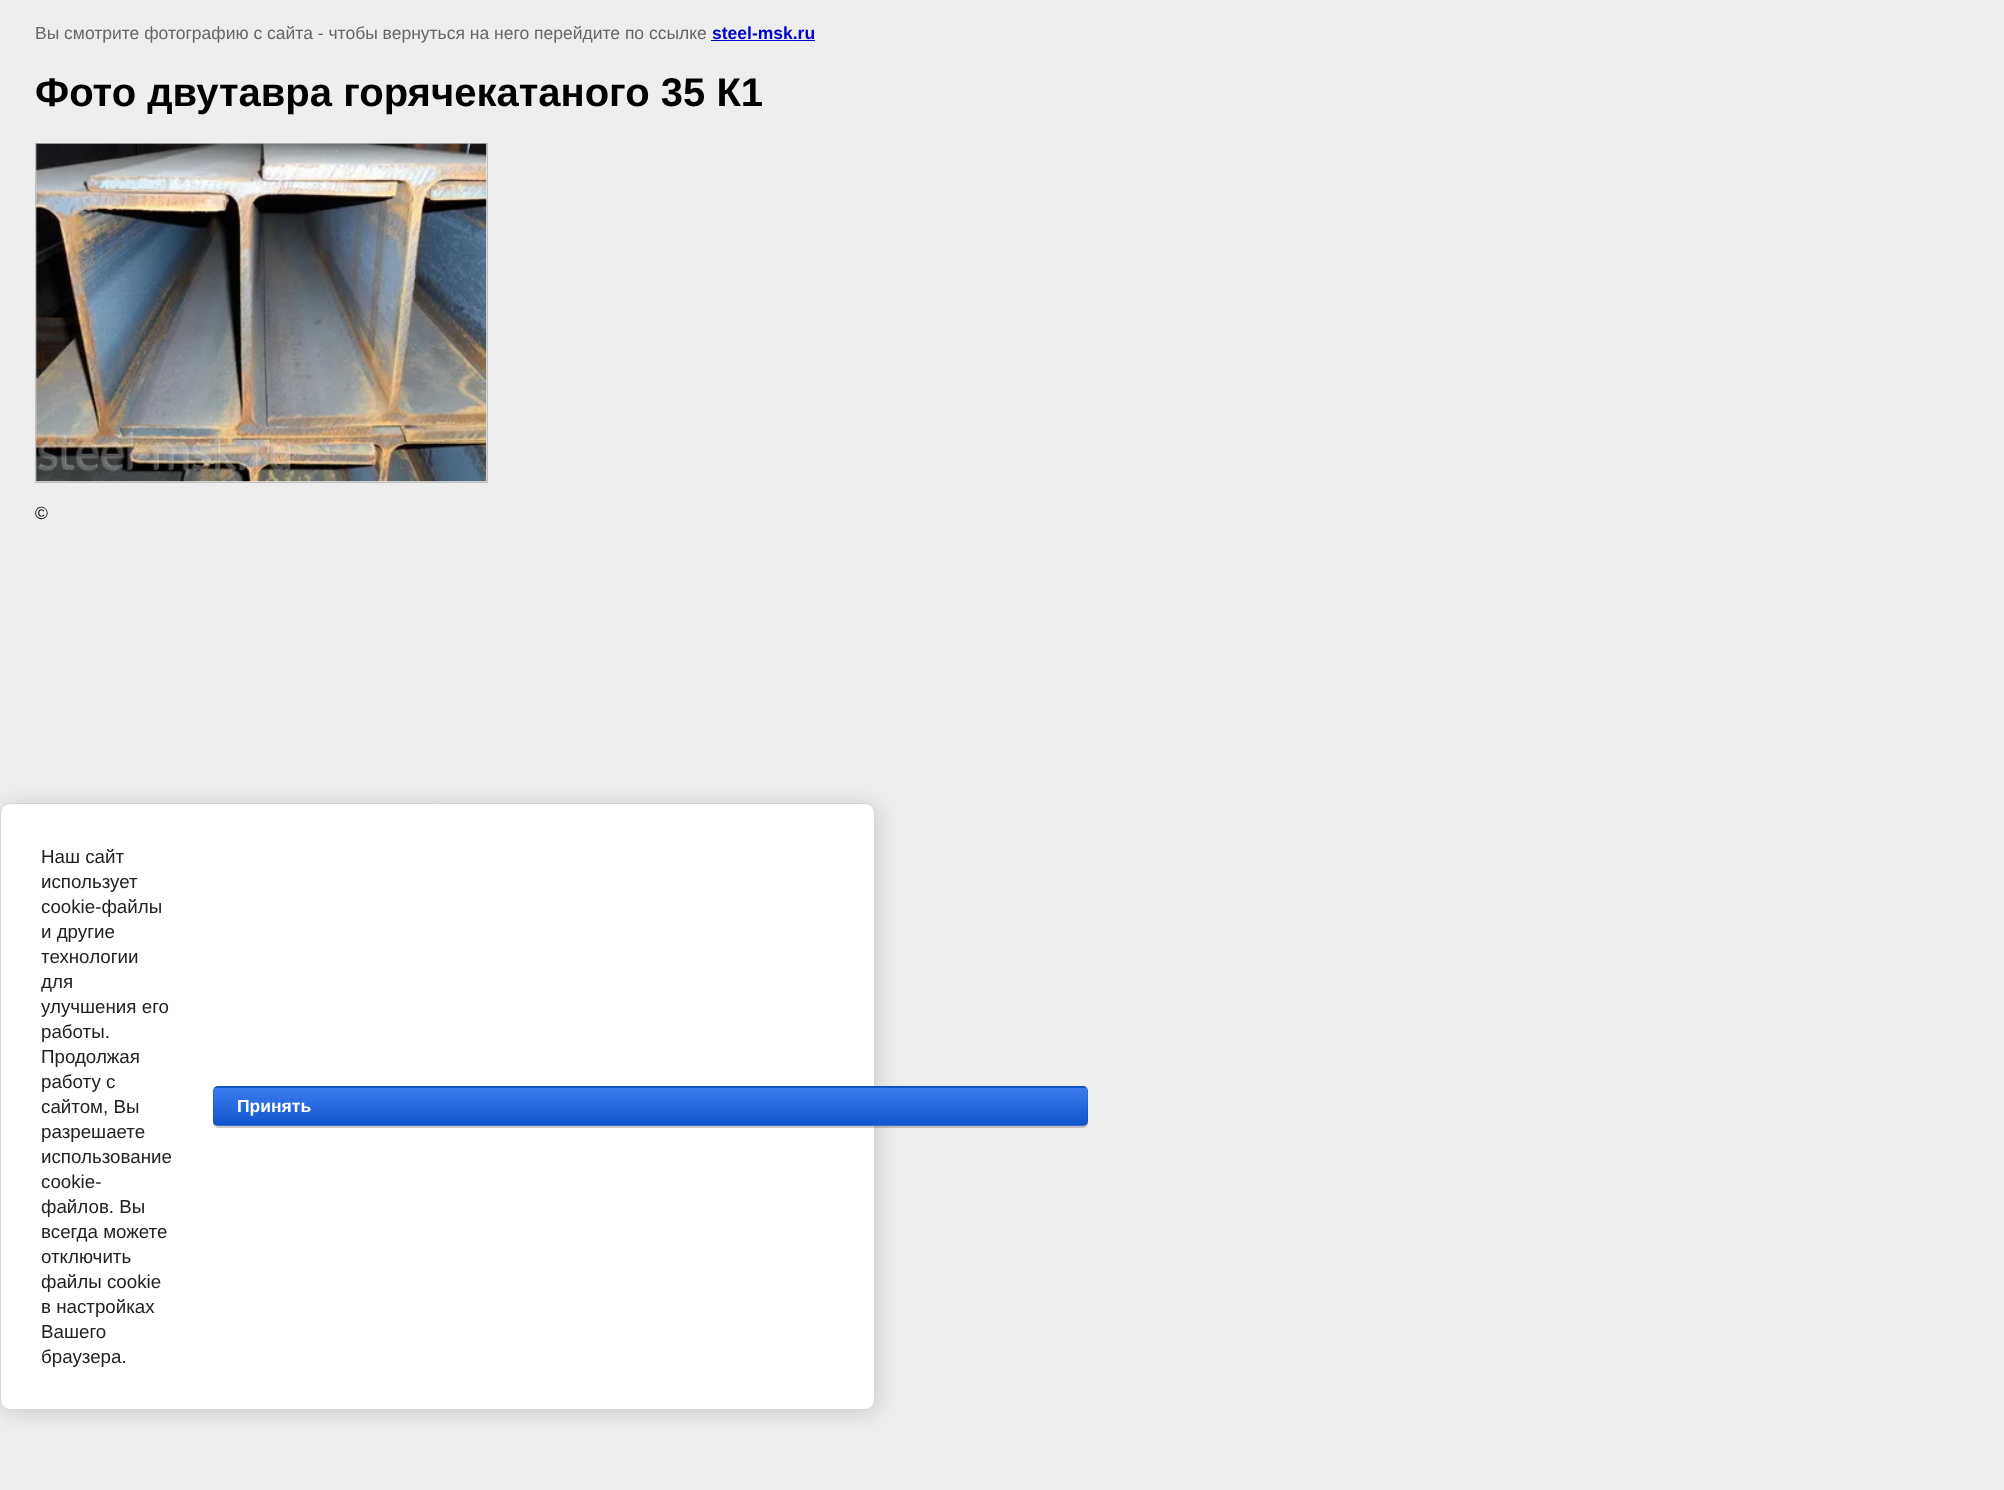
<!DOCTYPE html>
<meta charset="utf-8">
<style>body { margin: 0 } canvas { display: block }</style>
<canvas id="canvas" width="2004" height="1490"></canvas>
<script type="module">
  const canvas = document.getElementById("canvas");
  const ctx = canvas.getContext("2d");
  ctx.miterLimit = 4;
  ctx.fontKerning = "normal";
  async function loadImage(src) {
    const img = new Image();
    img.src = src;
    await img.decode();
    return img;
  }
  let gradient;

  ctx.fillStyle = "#eeeeee";
  ctx.fillRect(0, 0, 2004, 1490);
  ctx.font = "17.5px Liberation Sans";
  ctx.fillStyle = "#666666";
  ctx.fillText("Вы смотрите фотографию с сайта - чтобы вернуться на него перейдите по ссылке", 35, 39);
  ctx.font = "bold 17.5px Liberation Sans";
  ctx.fillStyle = "#0000cc";
  ctx.fillText("steel-msk.ru", 712, 39);
  ctx.fillRect(711, 40, 104, 1);
  ctx.font = "bold 40px Liberation Sans";
  ctx.fillStyle = "#000000";
  ctx.fillText("Фото двутавра горячекатаного 35 К1", 35, 106);
  ctx.strokeStyle = "#c0c0c0";
  ctx.strokeRect(35.5, 143.5, 452, 339);
  ctx.drawImage(await loadImage("img1.png"), 36, 143, 451, 339);
  ctx.font = "17.5px Liberation Sans";
  ctx.fillText("©", 35, 519);
  ctx.fillStyle = "rgba(0, 0, 0, 0.14)";
  ctx.filter = "blur(11px)";
  ctx.beginPath();
  ctx.roundRect(3, 805, 875, 608, 10);
  ctx.fill();
  ctx.filter = "none";
  ctx.fillStyle = "#ffffff";
  ctx.beginPath();
  ctx.roundRect(0.5, 803.5, 874, 606, 9.5);
  ctx.fill();
  ctx.strokeStyle = "#d6d6d6";
  ctx.stroke();
  ctx.font = "18.75px Liberation Sans";
  ctx.fillStyle = "#212121";
  ctx.fillText("Наш сайт", 41, 863);
  ctx.fillText("использует", 41, 888);
  ctx.fillText("cookie-файлы", 41, 913);
  ctx.fillText("и другие", 41, 938);
  ctx.fillText("технологии", 41, 963);
  ctx.fillText("для", 41, 988);
  ctx.fillText("улучшения его", 41, 1013);
  ctx.fillText("работы.", 41, 1038);
  ctx.fillText("Продолжая", 41, 1063);
  ctx.fillText("работу с", 41, 1088);
  ctx.fillText("сайтом, Вы", 41, 1113);
  ctx.fillText("разрешаете", 41, 1138);
  ctx.fillText("использование", 41, 1163);
  ctx.fillText("cookie-", 41, 1188);
  ctx.fillText("файлов. Вы", 41, 1213);
  ctx.fillText("всегда можете", 41, 1238);
  ctx.fillText("отключить", 41, 1263);
  ctx.fillText("файлы cookie", 41, 1288);
  ctx.fillText("в настройках", 41, 1313);
  ctx.fillText("Вашего", 41, 1338);
  ctx.fillText("браузера.", 41, 1363);
  ctx.fillStyle = "rgba(0, 0, 0, 0.2)";
  ctx.filter = "blur(0.5px)";
  ctx.beginPath();
  ctx.roundRect(213, 1088, 875, 40, 5);
  ctx.fill();
  ctx.filter = "none";
  ctx.save();
  ctx.beginPath();
  ctx.roundRect(213, 1086, 875, 40, 5);
  ctx.clip();
  gradient = ctx.createLinearGradient(650, 1050, 650, 1088);
  gradient.addColorStop(0, "#3b7cef");
  gradient.addColorStop(1, "#1155cc");
  ctx.fillStyle = gradient;
  ctx.fillRect(213, 1086, 875, 2);
  gradient = ctx.createLinearGradient(650, 1088, 650, 1125);
  gradient.addColorStop(0, "#3b7cef");
  gradient.addColorStop(1, "#1155cc");
  ctx.fillStyle = gradient;
  ctx.fillRect(213, 1088, 875, 37);
  gradient = ctx.createLinearGradient(650, 1125, 650, 1163);
  gradient.addColorStop(0, "#3b7cef");
  gradient.addColorStop(1, "#1155cc");
  ctx.fillStyle = gradient;
  ctx.fillRect(213, 1125, 875, 1);
  ctx.restore();
  ctx.beginPath();
  ctx.roundRect(213.5, 1086.5, 874, 39, 4.5);
  ctx.strokeStyle = "rgba(0, 0, 0, 0.1)";
  ctx.stroke();
  ctx.font = "bold 17.5px Liberation Sans";
  ctx.fillStyle = "#ffffff";
  ctx.fillText("Принять", 237, 1112);
</script>
